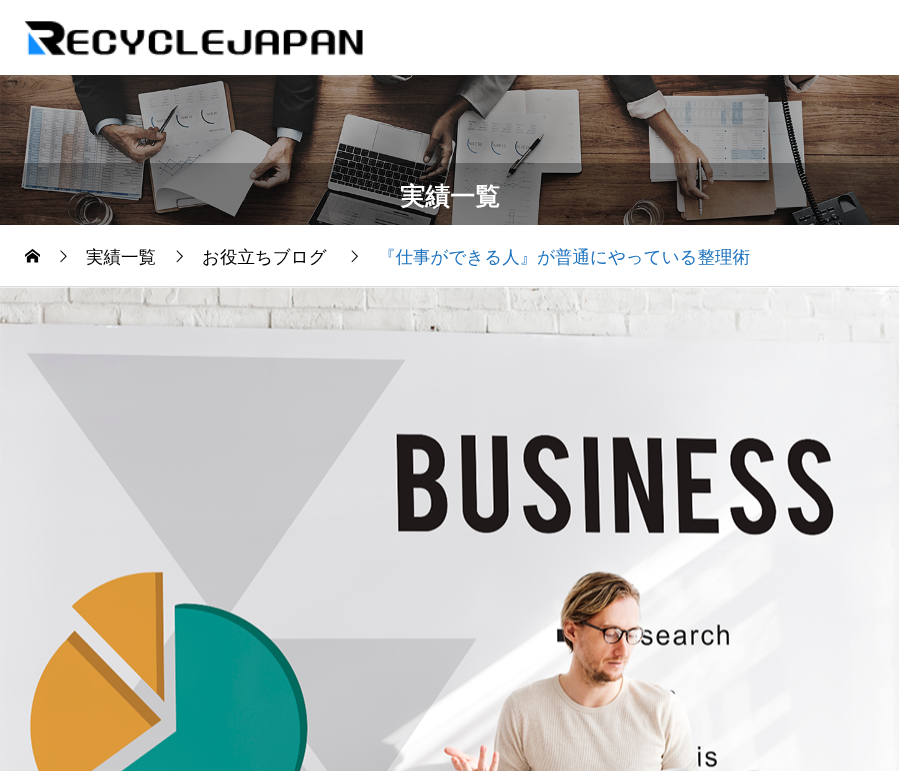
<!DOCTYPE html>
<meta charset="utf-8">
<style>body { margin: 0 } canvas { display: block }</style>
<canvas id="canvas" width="899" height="771"></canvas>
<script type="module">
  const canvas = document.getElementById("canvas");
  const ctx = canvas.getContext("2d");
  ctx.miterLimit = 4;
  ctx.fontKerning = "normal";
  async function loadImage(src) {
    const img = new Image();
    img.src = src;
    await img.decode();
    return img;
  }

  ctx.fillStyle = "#ffffff";
  ctx.fillRect(0, 0, 899, 771);
  ctx.drawImage(await loadImage("img1.png"), 25, 21, 338, 35);
  ctx.drawImage(await loadImage("img2.png"), 0, 75, 899, 150);
  ctx.fillStyle = "rgba(0, 0, 0, 0.3)";
  ctx.fillRect(0, 163, 899, 62);
  ctx.font = "bold 25px WenQuanYi Zen Hei";
  ctx.fillStyle = "#ffffff";
  ctx.fillText("実績一覧", 400, 205);
  ctx.fillStyle = "#dddddd";
  ctx.fillRect(0, 286, 899, 1);
  ctx.drawImage(await loadImage("img3.png"), 25, 249, 15, 14);
  ctx.drawImage(await loadImage("img4.png"), 60, 250, 7, 13);
  ctx.font = "500 17.5px WenQuanYi Zen Hei";
  ctx.fillStyle = "#000000";
  ctx.fillText("実績一覧", 86, 263);
  ctx.drawImage(await loadImage("img5.png"), 176, 250, 7, 13);
  ctx.fillText("お役立ちブログ", 202, 263);
  ctx.drawImage(await loadImage("img5.png"), 351, 250, 7, 13);
  ctx.fillStyle = "#1e73be";
  ctx.fillText("『仕事ができる人』が普通にやっている整理術", 378, 263);
  ctx.drawImage(await loadImage("img6.png"), 0, 287, 899, 484);
</script>
